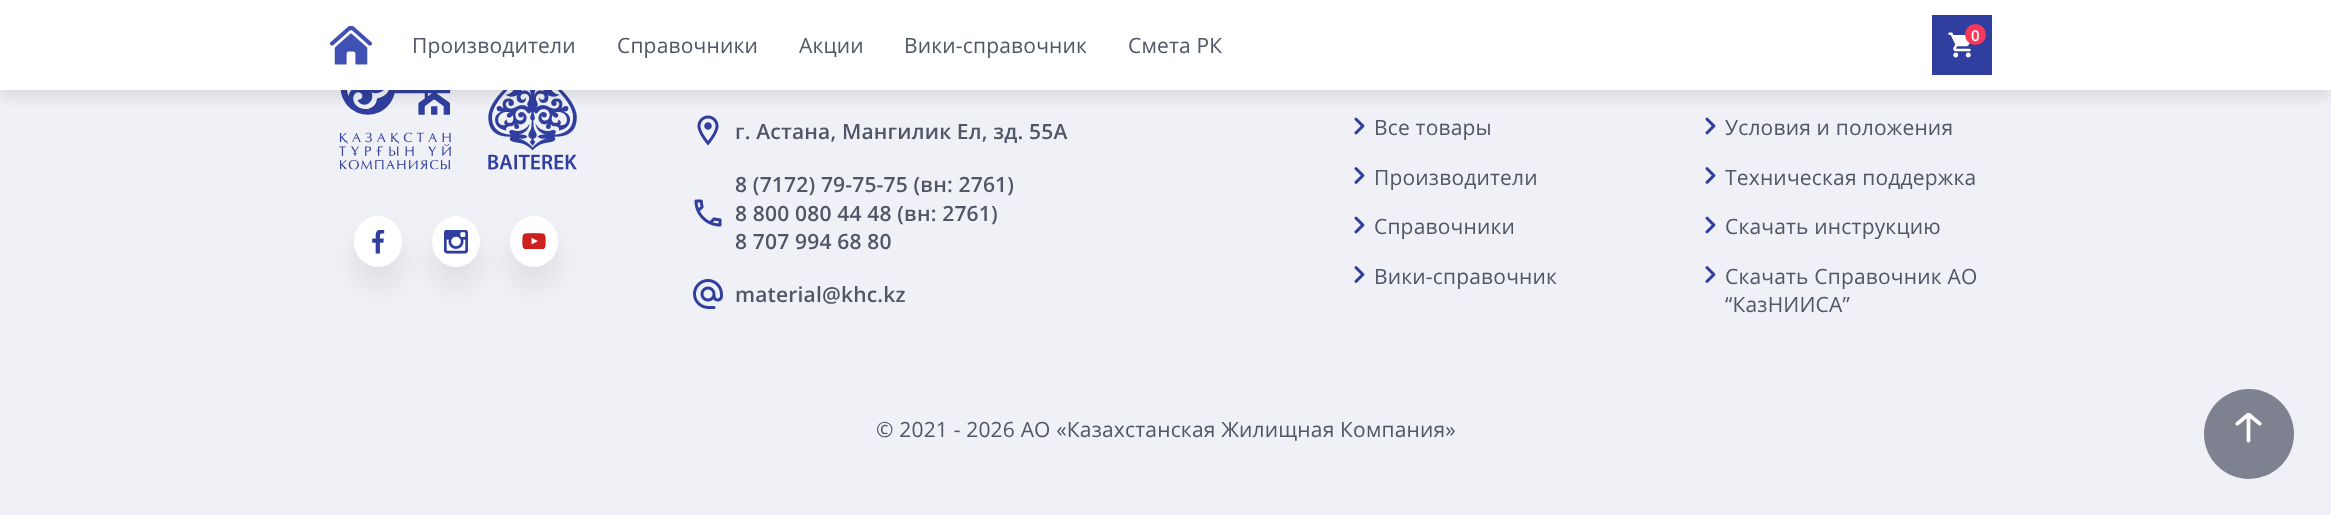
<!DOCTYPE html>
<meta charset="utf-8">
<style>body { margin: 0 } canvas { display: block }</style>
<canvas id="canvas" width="2331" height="515"></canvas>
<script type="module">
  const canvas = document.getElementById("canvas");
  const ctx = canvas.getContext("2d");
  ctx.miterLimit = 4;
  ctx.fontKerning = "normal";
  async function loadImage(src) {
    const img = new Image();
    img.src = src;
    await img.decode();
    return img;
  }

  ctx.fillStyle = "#f0f1f6";
  ctx.fillRect(0, 0, 2331, 515);
  ctx.drawImage(await loadImage("img3.png"), 339, 90, 112, 80);
  ctx.drawImage(await loadImage("img4.png"), 488, 90, 89, 80);
  ctx.drawImage(await loadImage("img8.png"), 697, 115, 22, 31);
  ctx.drawImage(await loadImage("img11.png"), 1354, 117, 11, 18);
  ctx.drawImage(await loadImage("img11.png"), 1705, 117, 11, 18);
  ctx.fillStyle = "rgba(0, 0, 0, 0.1)";
  ctx.filter = "blur(7.5px)";
  ctx.beginPath();
  ctx.rect(0, 6, 2331, 90);
  ctx.fill();
  ctx.filter = "none";
  ctx.fillStyle = "#ffffff";
  ctx.fillRect(0, 0, 2331, 90);
  ctx.drawImage(await loadImage("img1.png"), 330, 26, 42, 39);
  ctx.letterSpacing = "0.18px";
  ctx.font = "21px Open Sans";
  ctx.fillStyle = "#4f5665";
  ctx.fillText("Производители", 412, 53);
  ctx.fillText("Справочники", 617, 53);
  ctx.fillText("Акции", 799, 53);
  ctx.fillText("Вики-справочник", 904, 53);
  ctx.fillText("Смета РК", 1128, 53);
  ctx.fillStyle = "#303f9f";
  ctx.fillRect(1932, 15, 60, 60);
  ctx.drawImage(await loadImage("img2.png"), 1948, 32, 23, 26);
  ctx.fillStyle = "#f73859";
  ctx.beginPath();
  ctx.arc(1975.5, 34.5, 10.5, 0, Math.PI * 2);
  ctx.fill();
  ctx.font = "600 15px Open Sans";
  ctx.fillStyle = "#ffffff";
  ctx.fillText("0", 1971, 41);
  ctx.fillStyle = "rgba(17, 19, 35, 0.08)";
  ctx.filter = "blur(13.5px)";
  ctx.beginPath();
  ctx.roundRect(354, 236, 48, 51, 24);
  ctx.fill();
  ctx.filter = "none";
  ctx.fillStyle = "#ffffff";
  ctx.beginPath();
  ctx.ellipse(378, 241.5, 24, 25.5, 0, 0, Math.PI * 2);
  ctx.fill();
  ctx.drawImage(await loadImage("img5.png"), 372, 230, 13, 24);
  ctx.fillStyle = "rgba(17, 19, 35, 0.08)";
  ctx.filter = "blur(13.5px)";
  ctx.beginPath();
  ctx.roundRect(432, 236, 48, 51, 24);
  ctx.fill();
  ctx.filter = "none";
  ctx.fillStyle = "#ffffff";
  ctx.beginPath();
  ctx.ellipse(456, 241.5, 24, 25.5, 0, 0, Math.PI * 2);
  ctx.fill();
  ctx.drawImage(await loadImage("img6.png"), 444, 230, 24, 24);
  ctx.fillStyle = "rgba(17, 19, 35, 0.08)";
  ctx.filter = "blur(13.5px)";
  ctx.beginPath();
  ctx.roundRect(510, 236, 48, 51, 24);
  ctx.fill();
  ctx.filter = "none";
  ctx.fillStyle = "#ffffff";
  ctx.beginPath();
  ctx.ellipse(534, 241.5, 24, 25.5, 0, 0, Math.PI * 2);
  ctx.fill();
  ctx.drawImage(await loadImage("img7.png"), 522, 233, 24, 16);
  ctx.font = "600 21px Open Sans";
  ctx.fillStyle = "#4f5665";
  ctx.fillText("г. Астана, Мангилик Ел, зд. 55А", 735, 139);
  ctx.drawImage(await loadImage("img9.png"), 694, 199, 28, 28);
  ctx.fillText("8 (7172) 79-75-75 (вн: 2761)", 735, 192);
  ctx.fillText("8 800 080 44 48 (вн: 2761)", 735, 221);
  ctx.fillText("8 707 994 68 80", 735, 249);
  ctx.drawImage(await loadImage("img10.png"), 693, 279, 30, 30);
  ctx.fillText("material@khc.kz", 735, 302);
  ctx.font = "21px Open Sans";
  ctx.fillText("Все товары", 1374, 135);
  ctx.drawImage(await loadImage("img12.png"), 1354, 167, 11, 17);
  ctx.fillText("Производители", 1374, 185);
  ctx.drawImage(await loadImage("img11.png"), 1354, 216, 11, 18);
  ctx.fillText("Справочники", 1374, 234);
  ctx.drawImage(await loadImage("img12.png"), 1354, 266, 11, 17);
  ctx.fillText("Вики-справочник", 1374, 284);
  ctx.fillText("Условия и положения", 1725, 135);
  ctx.drawImage(await loadImage("img12.png"), 1705, 167, 11, 17);
  ctx.fillText("Техническая поддержка", 1725, 185);
  ctx.drawImage(await loadImage("img11.png"), 1705, 216, 11, 18);
  ctx.fillText("Скачать инструкцию", 1725, 234);
  ctx.drawImage(await loadImage("img12.png"), 1705, 266, 11, 17);
  ctx.fillText("Скачать Справочник АО", 1725, 284);
  ctx.fillText("“КазНИИСА”", 1725, 312);
  ctx.fillText("© 2021 - 2026 АО «Казахстанская Жилищная Компания»", 876, 437);
  ctx.fillStyle = "#7e8290";
  ctx.beginPath();
  ctx.arc(2249, 434, 45, 0, Math.PI * 2);
  ctx.fill();
  ctx.drawImage(await loadImage("img13.png"), 2235, 413, 27, 30);
</script>
